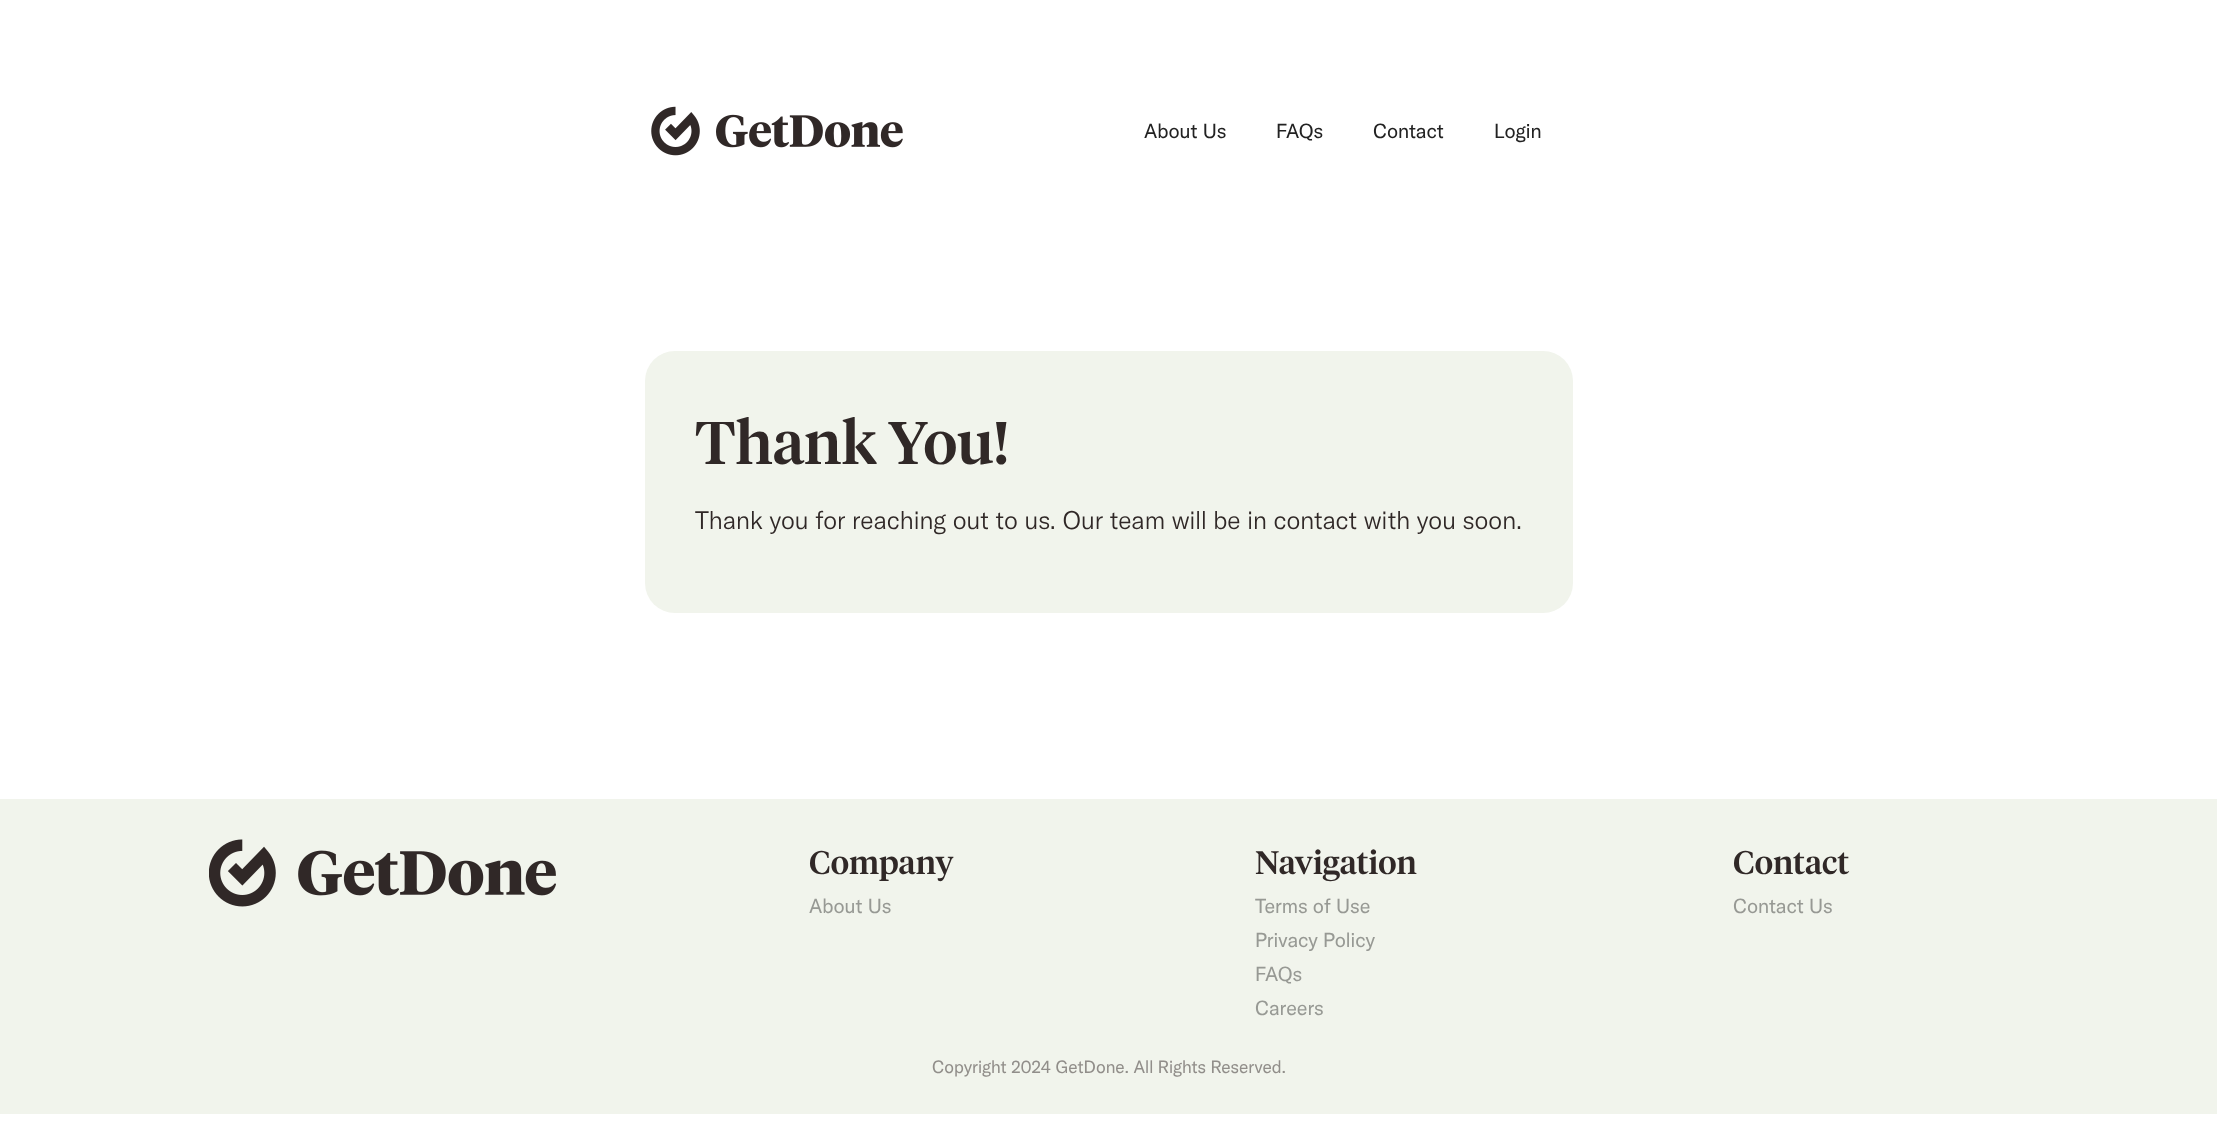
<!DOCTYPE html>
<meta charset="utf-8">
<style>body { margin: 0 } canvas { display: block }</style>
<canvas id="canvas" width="2217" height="1132"></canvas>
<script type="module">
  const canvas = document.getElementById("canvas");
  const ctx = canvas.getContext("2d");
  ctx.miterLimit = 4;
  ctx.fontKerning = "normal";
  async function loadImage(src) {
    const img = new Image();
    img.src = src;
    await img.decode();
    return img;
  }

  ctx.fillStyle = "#ffffff";
  ctx.fillRect(0, 0, 2217, 1132);
  ctx.drawImage(await loadImage("img1.png"), 651, 106, 252, 50);
  ctx.font = "20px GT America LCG";
  ctx.fillStyle = "#222222";
  ctx.fillText("About Us", 1144, 138);
  ctx.fillText("FAQs", 1276, 138);
  ctx.fillText("Contact", 1373, 138);
  ctx.fillText("Login", 1494, 138);
  ctx.fillStyle = "#f1f4ec";
  ctx.beginPath();
  ctx.roundRect(645, 351, 928, 262, 30);
  ctx.fill();
  ctx.font = "500 60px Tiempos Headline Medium";
  ctx.fillStyle = "#302827";
  ctx.fillText("Thank You!", 695, 464);
  ctx.font = "300 25px GT America LCG";
  ctx.fillText("Thank you for reaching out to us. Our team will be in contact with you soon.", 695, 529);
  ctx.fillStyle = "#f1f4ec";
  ctx.fillRect(0, 799, 2217, 315);
  ctx.drawImage(await loadImage("img2.png"), 209, 839, 347, 68);
  ctx.font = "500 32.5px Tiempos Headline Medium";
  ctx.fillStyle = "#302827";
  ctx.fillText("Company", 809, 874);
  ctx.font = "20px GT America LCG";
  ctx.fillStyle = "#979994";
  ctx.fillText("About Us", 809, 913);
  ctx.font = "500 32.5px Tiempos Headline Medium";
  ctx.fillStyle = "#302827";
  ctx.fillText("Navigation", 1255, 874);
  ctx.font = "20px GT America LCG";
  ctx.fillStyle = "#979994";
  ctx.fillText("Terms of Use", 1255, 913);
  ctx.fillText("Privacy Policy", 1255, 947);
  ctx.fillText("FAQs", 1255, 981);
  ctx.fillText("Careers", 1255, 1015);
  ctx.font = "500 32.5px Tiempos Headline Medium";
  ctx.fillStyle = "#302827";
  ctx.fillText("Contact", 1733, 874);
  ctx.font = "20px GT America LCG";
  ctx.fillStyle = "#979994";
  ctx.fillText("Contact Us", 1733, 913);
  ctx.font = "17.5px GT America LCG";
  ctx.fillStyle = "#918e8a";
  ctx.fillText("Copyright 2024 GetDone. All Rights Reserved.", 932, 1073);
</script>
